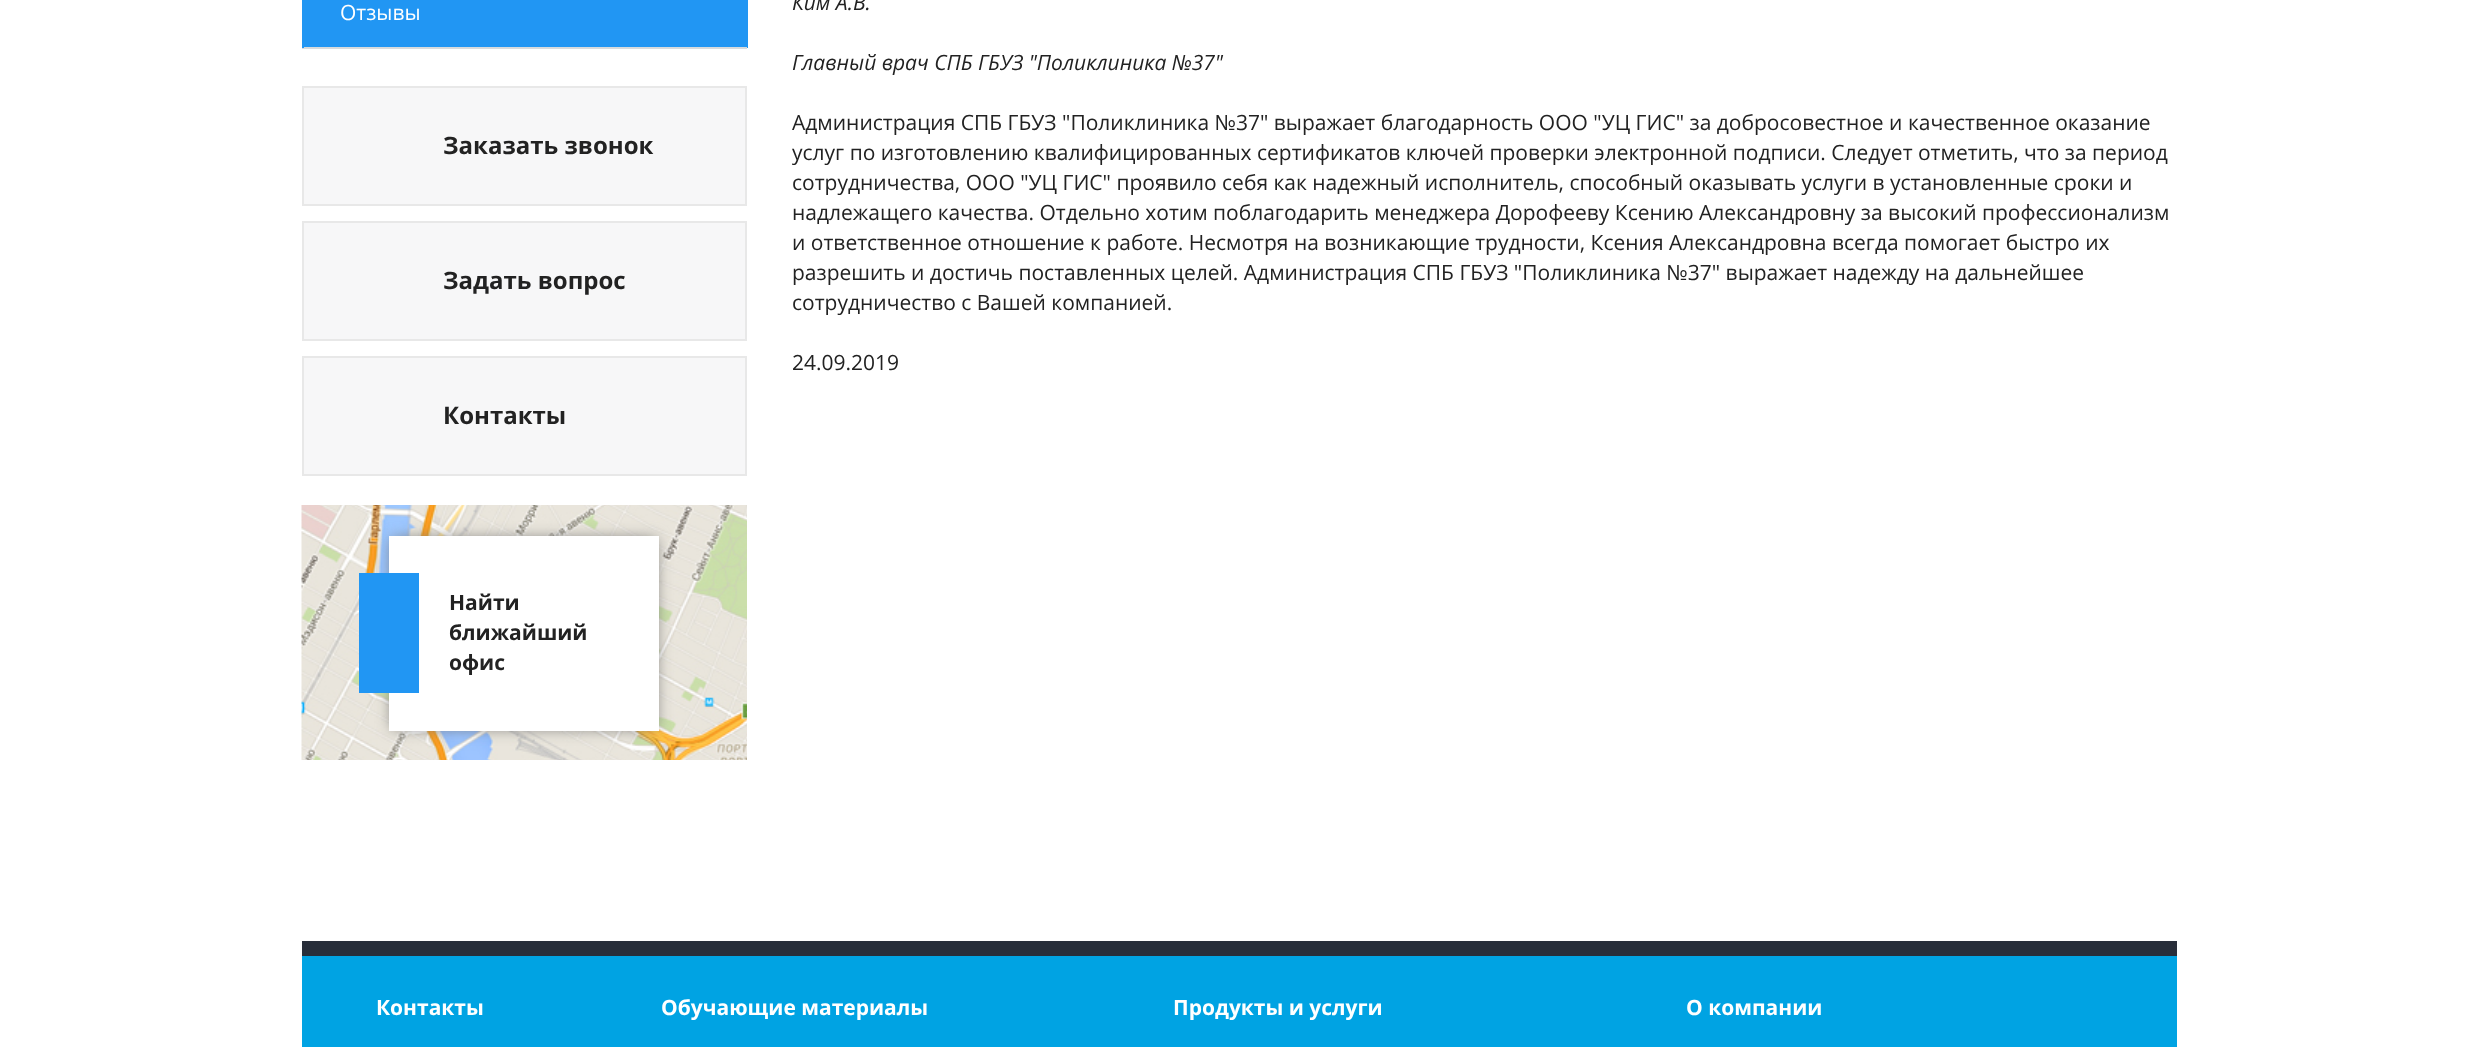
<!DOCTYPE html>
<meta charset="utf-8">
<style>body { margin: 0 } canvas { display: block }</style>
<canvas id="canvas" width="2476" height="1047"></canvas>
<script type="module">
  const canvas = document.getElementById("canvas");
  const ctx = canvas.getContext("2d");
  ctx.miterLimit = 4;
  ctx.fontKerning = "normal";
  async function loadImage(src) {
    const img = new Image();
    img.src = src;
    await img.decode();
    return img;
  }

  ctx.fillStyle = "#ffffff";
  ctx.fillRect(0, 0, 2476, 1047);
  ctx.fillStyle = "#2196f3";
  ctx.fillRect(304, 0, 442, 47);
  ctx.fillRect(746, 0, 2, 48);
  ctx.fillStyle = "#d7dbdd";
  ctx.fillRect(302, 47, 445, 2);
  ctx.fillStyle = "#2196f3";
  ctx.fillRect(302, 0, 2, 48);
  ctx.font = "21px Open Sans";
  ctx.fillStyle = "#ffffff";
  ctx.fillText("Отзывы", 340, 20);
  ctx.fillStyle = "#f7f7f8";
  ctx.beginPath();
  ctx.rect(303, 87, 443, 118);
  ctx.fill();
  ctx.strokeStyle = "#e8e8e8";
  ctx.lineWidth = 2;
  ctx.stroke();
  ctx.font = "bold 24px Open Sans";
  ctx.fillStyle = "#222222";
  ctx.fillText("Заказать звонок", 443, 154);
  ctx.fillStyle = "#f7f7f8";
  ctx.beginPath();
  ctx.rect(303, 222, 443, 118);
  ctx.fill();
  ctx.stroke();
  ctx.fillStyle = "#222222";
  ctx.fillText("Задать вопрос", 443, 289);
  ctx.fillStyle = "#f7f7f8";
  ctx.beginPath();
  ctx.rect(303, 357, 443, 118);
  ctx.fill();
  ctx.stroke();
  ctx.fillStyle = "#222222";
  ctx.fillText("Контакты", 443, 424);
  ctx.drawImage(await loadImage("img1.png"), 301, 505, 446, 255);
  ctx.fillStyle = "#777777";
  ctx.filter = "blur(7.5px)";
  ctx.beginPath();
  ctx.rect(392, 539, 264, 189);
  ctx.fill();
  ctx.filter = "none";
  ctx.fillStyle = "#ffffff";
  ctx.fillRect(389, 536, 270, 195);
  ctx.fillStyle = "#2196f3";
  ctx.fillRect(359, 573, 60, 120);
  ctx.font = "bold 21px Open Sans";
  ctx.fillStyle = "#222222";
  ctx.fillText("Найти", 449, 610);
  ctx.fillText("ближайший", 449, 640);
  ctx.fillText("офис", 449, 670);
  ctx.font = "italic 21px Open Sans";
  ctx.fillText("Ким А.В.", 792, 10);
  ctx.fillText("Главный врач СПБ ГБУЗ \"Поликлиника №37\"", 792, 70);
  ctx.font = "21px Open Sans";
  ctx.fillText("Администрация СПБ ГБУЗ \"Поликлиника №37\" выражает благодарность ООО \"УЦ ГИС\" за добросовестное и качественное оказание", 792, 130);
  ctx.fillText("услуг по изготовлению квалифицированных сертификатов ключей проверки электронной подписи. Следует отметить, что за период", 792, 160);
  ctx.fillText("сотрудничества, ООО \"УЦ ГИС\" проявило себя как надежный исполнитель, способный оказывать услуги в установленные сроки и", 792, 190);
  ctx.fillText("надлежащего качества. Отдельно хотим поблагодарить менеджера Дорофееву Ксению Александровну за высокий профессионализм", 792, 220);
  ctx.fillText("и ответственное отношение к работе. Несмотря на возникающие трудности, Ксения Александровна всегда помогает быстро их", 792, 250);
  ctx.fillText("разрешить и достичь поставленных целей. Администрация СПБ ГБУЗ \"Поликлиника №37\" выражает надежду на дальнейшее", 792, 280);
  ctx.fillText("сотрудничество с Вашей компанией.", 792, 310);
  ctx.fillText("24.09.2019", 792, 370);
  ctx.fillStyle = "#282e3a";
  ctx.fillRect(302, 941, 1875, 15);
  ctx.fillStyle = "#00a3e3";
  ctx.fillRect(302, 956, 1875, 91);
  ctx.font = "bold 21px Open Sans";
  ctx.fillStyle = "#ffffff";
  ctx.fillText("Контакты", 376, 1015);
  ctx.fillText("Обучающие материалы", 661, 1015);
  ctx.fillText("Продукты и услуги", 1173, 1015);
  ctx.fillText("О компании", 1686, 1015);
</script>
